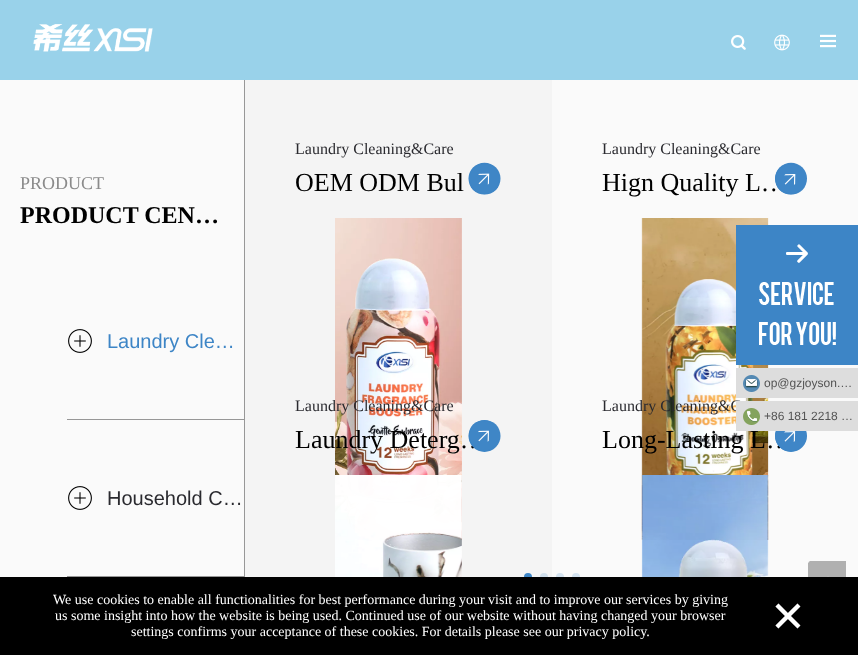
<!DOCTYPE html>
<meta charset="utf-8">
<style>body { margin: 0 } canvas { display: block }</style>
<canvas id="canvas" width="858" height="655"></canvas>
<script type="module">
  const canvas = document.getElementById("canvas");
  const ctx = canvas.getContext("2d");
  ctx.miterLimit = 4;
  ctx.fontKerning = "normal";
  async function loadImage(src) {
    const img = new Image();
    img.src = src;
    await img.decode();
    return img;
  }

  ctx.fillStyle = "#fafafa";
  ctx.fillRect(0, 0, 858, 655);
  ctx.fillStyle = "#99d2ea";
  ctx.fillRect(0, 0, 858, 80);
  ctx.drawImage(await loadImage("img1.png"), 33, 24, 120, 28);
  ctx.drawImage(await loadImage("img2.png"), 731, 35, 15, 15);
  ctx.drawImage(await loadImage("img3.png"), 774, 34, 16, 17);
  ctx.drawImage(await loadImage("img4.png"), 820, 34, 16, 14);
  ctx.fillStyle = "#979797";
  ctx.fillRect(244, 80, 1, 497);
  ctx.font = "18px Liberation Serif";
  ctx.fillStyle = "#8b8b8b";
  ctx.fillText("PRODUCT", 20, 189);
  ctx.font = "bold 24px Liberation Serif";
  ctx.fillStyle = "#000000";
  ctx.fillText("PRODUCT CEN…", 20, 223);
  ctx.fillStyle = "#979797";
  ctx.fillRect(67, 419, 177, 1);
  ctx.drawImage(await loadImage("img5.png"), 68, 329, 24, 24);
  ctx.font = "20px Liberation Sans";
  ctx.fillStyle = "#3d85c6";
  ctx.fillText("Laundry Cle…", 107, 348);
  ctx.fillStyle = "#979797";
  ctx.fillRect(67, 576, 177, 1);
  ctx.drawImage(await loadImage("img5.png"), 68, 486, 24, 24);
  ctx.fillStyle = "#2a2a2f";
  ctx.fillText("Household C…", 107, 505);
  ctx.fillStyle = "#f4f4f4";
  ctx.fillRect(245, 80, 307, 497);
  ctx.font = "16px Liberation Serif";
  ctx.fillStyle = "#2a2a2f";
  ctx.fillText("Laundry Cleaning&Care", 295, 154);
  ctx.font = "26px Liberation Serif";
  ctx.fillStyle = "#000000";
  ctx.fillText("OEM ODM Bul", 295, 191);
  ctx.fillStyle = "#3f86c6";
  ctx.beginPath();
  ctx.moveTo(473, 167.5);
  ctx.bezierCurveTo(479.5, 161, 489.5, 161, 496, 167.5);
  ctx.bezierCurveTo(502, 173.5, 502, 183.5, 496, 190);
  ctx.bezierCurveTo(489.5, 196, 479.5, 196, 473, 190);
  ctx.bezierCurveTo(467, 183.5, 467, 173.5, 473, 167.5);
  ctx.closePath();
  ctx.fill();
  ctx.drawImage(await loadImage("img6.png"), 468, 163, 31, 32);
  ctx.drawImage(await loadImage("img7.png"), 335, 218, 127, 322);
  ctx.font = "16px Liberation Serif";
  ctx.fillStyle = "#2a2a2f";
  ctx.fillText("Laundry Cleaning&Care", 602, 154);
  ctx.font = "26px Liberation Serif";
  ctx.fillStyle = "#000000";
  ctx.fillText("Hign Quality L…", 602, 191);
  ctx.fillStyle = "#3f86c7";
  ctx.beginPath();
  ctx.moveTo(779.5, 167.5);
  ctx.bezierCurveTo(786, 161, 796, 161, 802.5, 167.5);
  ctx.bezierCurveTo(808.5, 173.5, 808.5, 183.5, 802.5, 190);
  ctx.bezierCurveTo(796, 196, 786, 196, 779.5, 190);
  ctx.bezierCurveTo(773.5, 183.5, 773.5, 173.5, 779.5, 167.5);
  ctx.closePath();
  ctx.fill();
  ctx.drawImage(await loadImage("img8.png"), 775, 164, 24, 31);
  ctx.drawImage(await loadImage("img9.png"), 641, 218, 128, 322);
  ctx.font = "16px Liberation Serif";
  ctx.fillStyle = "#2a2a2f";
  ctx.fillText("Laundry Cleaning&Care", 295, 411);
  ctx.font = "26px Liberation Serif";
  ctx.fillStyle = "#000000";
  ctx.fillText("Laundry Deterg…", 295, 448);
  ctx.fillStyle = "#3f86c6";
  ctx.beginPath();
  ctx.moveTo(473, 424.5);
  ctx.bezierCurveTo(479.5, 418.5, 489.5, 418.5, 496, 424.5);
  ctx.bezierCurveTo(502, 431, 502, 441, 496, 447);
  ctx.bezierCurveTo(489.5, 453.5, 479.5, 453.5, 473, 447);
  ctx.bezierCurveTo(467, 441, 467, 431, 473, 424.5);
  ctx.closePath();
  ctx.fill();
  ctx.drawImage(await loadImage("img10.png"), 468, 420, 25, 32);
  ctx.drawImage(await loadImage("img11.png"), 335, 475, 127, 102);
  ctx.font = "16px Liberation Serif";
  ctx.fillStyle = "#2a2a2f";
  ctx.fillText("Laundry Cleaning&C", 602, 411);
  ctx.font = "26px Liberation Serif";
  ctx.fillStyle = "#000000";
  ctx.fillText("Long-Lasting L…", 602, 448);
  ctx.fillStyle = "#3f86c7";
  ctx.beginPath();
  ctx.moveTo(779.5, 424.5);
  ctx.bezierCurveTo(786, 418.5, 796, 418.5, 802.5, 424.5);
  ctx.bezierCurveTo(808.5, 431, 808.5, 441, 802.5, 447);
  ctx.bezierCurveTo(796, 453.5, 786, 453.5, 779.5, 447);
  ctx.bezierCurveTo(773.5, 441, 773.5, 431, 779.5, 424.5);
  ctx.closePath();
  ctx.fill();
  ctx.drawImage(await loadImage("img12.png"), 775, 431, 24, 21);
  ctx.drawImage(await loadImage("img13.png"), 641, 475, 128, 102);
  ctx.fillStyle = "#3d85c6";
  ctx.beginPath();
  ctx.arc(528, 577, 4, 0, Math.PI * 2);
  ctx.fill();
  ctx.fillStyle = "#cfdeeb";
  ctx.beginPath();
  ctx.arc(544, 577, 4, 0, Math.PI * 2);
  ctx.fill();
  ctx.fillStyle = "#d4e3f0";
  ctx.beginPath();
  ctx.arc(560, 577, 4, 0, Math.PI * 2);
  ctx.fill();
  ctx.beginPath();
  ctx.arc(576, 577, 4, 0, Math.PI * 2);
  ctx.fill();
  ctx.fillStyle = "#3d85c6";
  ctx.fillRect(736, 225, 122, 140);
  ctx.drawImage(await loadImage("img14.png"), 759, 244, 77, 101);
  ctx.fillStyle = "#dddddd";
  ctx.fillRect(736, 368, 122, 30);
  ctx.drawImage(await loadImage("img15.png"), 743, 375, 17, 17);
  ctx.font = "12px Liberation Sans";
  ctx.fillStyle = "#545454";
  ctx.fillText("op@gzjoyson.…", 764, 387);
  ctx.fillStyle = "#dddddd";
  ctx.fillRect(736, 401, 122, 30);
  ctx.drawImage(await loadImage("img16.png"), 743, 408, 17, 17);
  ctx.fillStyle = "#545454";
  ctx.fillText("+86 181 2218 …", 764, 420);
  ctx.drawImage(await loadImage("img17.png"), 808, 561, 38, 16);
  ctx.fillStyle = "#000000";
  ctx.fillRect(0, 577, 858, 78);
  ctx.font = "14px Liberation Serif";
  ctx.fillStyle = "#ffffff";
  ctx.fillText("We use cookies to enable all functionalities for best performance during your visit and to improve our services by giving", 53, 604);
  ctx.fillText("us some insight into how the website is being used. Continued use of our website without having changed your browser", 55, 620);
  ctx.fillText("settings confirms your acceptance of these cookies. For details please see our privacy policy.", 131, 636);
  ctx.font = "bold 60px Liberation Serif";
  ctx.fillText("×", 771, 636);
</script>
